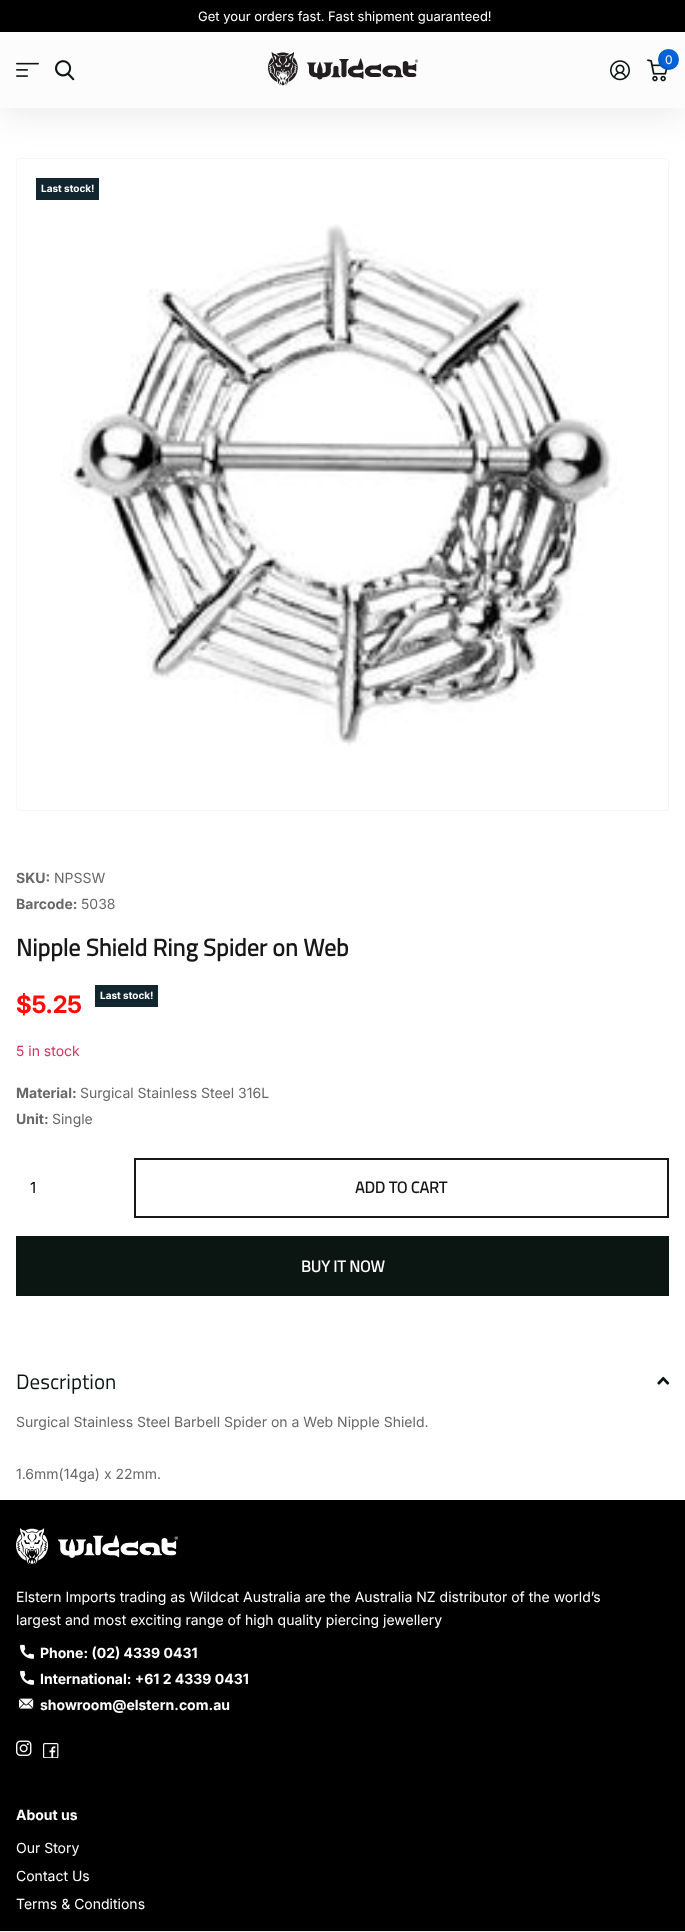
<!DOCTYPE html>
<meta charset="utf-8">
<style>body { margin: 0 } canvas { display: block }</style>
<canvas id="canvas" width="685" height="1932"></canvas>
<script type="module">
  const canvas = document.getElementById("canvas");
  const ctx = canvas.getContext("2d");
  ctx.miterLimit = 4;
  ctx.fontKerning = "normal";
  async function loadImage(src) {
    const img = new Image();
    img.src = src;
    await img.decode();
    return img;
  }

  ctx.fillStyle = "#ffffff";
  ctx.fillRect(0, 0, 685, 1932);
  ctx.beginPath();
  ctx.roundRect(16.5, 158.5, 652, 652, 3.5);
  ctx.strokeStyle = "#f5f5f5";
  ctx.stroke();
  ctx.fillStyle = "rgba(0, 0, 0, 0.07)";
  ctx.filter = "blur(16px)";
  ctx.beginPath();
  ctx.rect(0, 9, 685, 108);
  ctx.fill();
  ctx.filter = "none";
  ctx.fillStyle = "#fcfcfc";
  ctx.fillRect(0, 32, 685, 76);
  ctx.fillStyle = "#000000";
  ctx.fillRect(0, 0, 685, 32);
  ctx.font = "13px Inter";
  ctx.fillStyle = "#ffffff";
  ctx.fillText("Get your orders fast. Fast shipment guaranteed!", 198, 21);
  ctx.drawImage(await loadImage("img1.png"), 16, 62, 23, 15);
  ctx.drawImage(await loadImage("img2.png"), 55, 60, 20, 21);
  ctx.drawImage(await loadImage("img3.png"), 268, 52, 150, 34);
  ctx.drawImage(await loadImage("img4.png"), 610, 60, 20, 21);
  ctx.drawImage(await loadImage("img5.png"), 647, 59, 21, 23);
  ctx.fillStyle = "#0463d7";
  ctx.beginPath();
  ctx.arc(668.5, 59.5, 10.5, 0, Math.PI * 2);
  ctx.fill();
  ctx.fillStyle = "rgba(0, 0, 0, 0.1)";
  ctx.beginPath();
  ctx.moveTo(677, 65.5);
  ctx.bezierCurveTo(675.5, 67, 673, 68, 670, 68);
  ctx.bezierCurveTo(661, 68, 658, 57.5, 662, 51.5);
  ctx.bezierCurveTo(657, 55, 656.5, 62.5, 661, 67);
  ctx.bezierCurveTo(665.5, 71.5, 673.5, 71, 677, 65.5);
  ctx.closePath();
  ctx.fill();
  ctx.font = "12px Inter";
  ctx.fillStyle = "#ffffff";
  ctx.fillText("0", 665, 64);
  ctx.fillStyle = "#f1f1f1";
  ctx.fillRect(0, 1931, 685, 1);
  ctx.drawImage(await loadImage("img6.png"), 60, 224, 564, 522);
  ctx.fillStyle = "#12262f";
  ctx.fillRect(36, 178, 63, 22);
  ctx.font = "bold 10px 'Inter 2'";
  ctx.fillStyle = "#ffffff";
  ctx.fillText("Last stock!", 41, 192);
  ctx.font = "bold 14px 'Inter 2'";
  ctx.fillStyle = "#686868";
  ctx.fillText("SKU:", 16, 883);
  ctx.font = "14px Inter";
  ctx.fillText("NPSSW", 54, 883);
  ctx.font = "bold 14px 'Inter 2'";
  ctx.fillText("Barcode:", 16, 909);
  ctx.font = "14px Inter";
  ctx.fillText("5038", 81, 909);
  ctx.font = "bold 24px Titillium Web";
  ctx.fillStyle = "#171717";
  ctx.fillText("Nipple Shield Ring Spider on Web", 16, 956);
  ctx.font = "bold 24px Inter";
  ctx.fillStyle = "#fe0b03";
  ctx.fillText("$5.25", 16, 1013);
  ctx.fillStyle = "#12262f";
  ctx.fillRect(95, 985, 63, 22);
  ctx.font = "bold 10px 'Inter 2'";
  ctx.fillStyle = "#ffffff";
  ctx.fillText("Last stock!", 100, 999);
  ctx.font = "14px Inter";
  ctx.fillStyle = "#d83260";
  ctx.fillText("5 in stock", 16, 1056);
  ctx.font = "bold 14px 'Inter 2'";
  ctx.fillStyle = "#686868";
  ctx.fillText("Material:", 16, 1098);
  ctx.font = "14px Inter";
  ctx.fillText("Surgical Stainless Steel 316L", 80, 1098);
  ctx.font = "bold 14px 'Inter 2'";
  ctx.fillText("Unit:", 16, 1124);
  ctx.font = "14px Inter";
  ctx.fillText("Single", 52, 1124);
  ctx.font = "15px Inter";
  ctx.fillStyle = "#000000";
  ctx.fillText("1", 30, 1193);
  ctx.strokeStyle = "#171717";
  ctx.lineWidth = 2;
  ctx.strokeRect(135, 1159, 533, 58);
  ctx.font = "bold 16px Titillium Web";
  ctx.fillStyle = "#171717";
  ctx.fillText("ADD TO CART", 355, 1193);
  ctx.fillStyle = "#0b1613";
  ctx.fillRect(18, 1236, 651, 58);
  ctx.save();
  ctx.beginPath();
  ctx.rect(16, 1236, 653, 60);
  ctx.clip();
  ctx.fillStyle = "#0a1411";
  ctx.beginPath();
  ctx.moveTo(-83, 1137);
  ctx.lineTo(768, 1137);
  ctx.lineTo(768, 1395);
  ctx.lineTo(-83, 1395);
  ctx.closePath();
  ctx.moveTo(18, 1234);
  ctx.lineTo(671, 1234);
  ctx.lineTo(671, 1294);
  ctx.lineTo(18, 1294);
  ctx.closePath();
  ctx.fill("evenodd");
  ctx.restore();
  ctx.fillStyle = "#ffffff";
  ctx.fillText("BUY IT NOW", 301, 1272);
  ctx.font = "21px Titillium Web";
  ctx.fillStyle = "#0b1613";
  ctx.fillText("Description", 16, 1389);
  ctx.drawImage(await loadImage("img7.png"), 657, 1376, 13, 9);
  ctx.font = "14px Inter";
  ctx.fillStyle = "#686868";
  ctx.fillText("Surgical Stainless Steel Barbell Spider on a Web Nipple Shield.", 16, 1427);
  ctx.fillText("1.6mm(14ga) x 22mm.", 16, 1479);
  ctx.fillStyle = "#000000";
  ctx.fillRect(0, 1500, 685, 431);
  ctx.drawImage(await loadImage("img8.png"), 16, 1528, 162, 37);
  ctx.fillStyle = "#ffffff";
  ctx.fillText("Elstern Imports trading as Wildcat Australia are the Australia NZ distributor of the world’s", 16, 1602);
  ctx.fillText("largest and most exciting range of high quality piercing jewellery", 16, 1625);
  ctx.drawImage(await loadImage("img9.png"), 20, 1644, 14, 15);
  ctx.font = "bold 14px 'Inter 2'";
  ctx.fillText("Phone: (02) 4339 0431", 40, 1658);
  ctx.drawImage(await loadImage("img9.png"), 20, 1670, 14, 15);
  ctx.fillText("International: +61 2 4339 0431", 40, 1684);
  ctx.drawImage(await loadImage("img10.png"), 19, 1698, 15, 11);
  ctx.fillText("showroom@elstern.com.au", 40, 1710);
  ctx.drawImage(await loadImage("img11.png"), 16, 1740, 16, 16);
  ctx.drawImage(await loadImage("img12.png"), 43, 1743, 16, 15);
  ctx.fillText("About us", 16, 1820);
  ctx.font = "14px Inter";
  ctx.fillText("Our Story", 16, 1853);
  ctx.fillText("Contact Us", 16, 1881);
  ctx.fillText("Terms & Conditions", 16, 1909);
</script>
